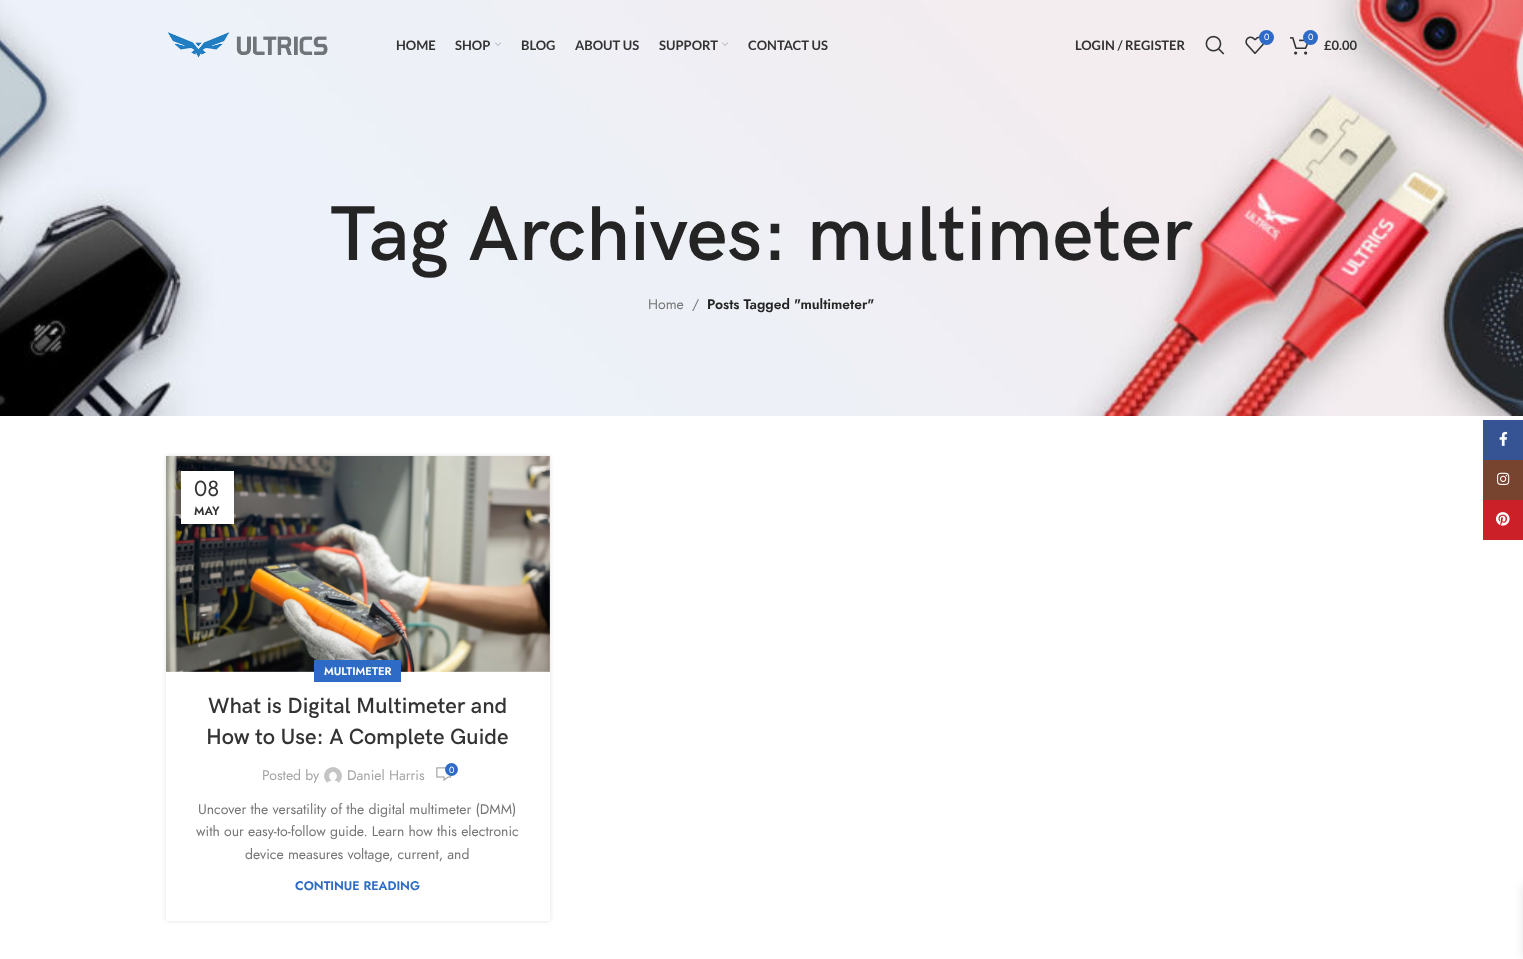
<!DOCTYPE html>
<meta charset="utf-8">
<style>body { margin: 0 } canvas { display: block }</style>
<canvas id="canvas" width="1523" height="959"></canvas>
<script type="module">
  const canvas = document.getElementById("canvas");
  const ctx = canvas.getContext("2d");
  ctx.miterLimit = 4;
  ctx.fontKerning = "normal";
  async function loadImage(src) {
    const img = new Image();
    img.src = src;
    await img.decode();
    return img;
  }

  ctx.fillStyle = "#ffffff";
  ctx.fillRect(0, 0, 1523, 959);
  ctx.drawImage(await loadImage("img7.png"), 0, 0, 1523, 416);
  ctx.drawImage(await loadImage("img1.png"), 167, 32, 161, 26);
  ctx.font = "bold 13px Lato";
  ctx.fillStyle = "#333333";
  ctx.fillText("HOME", 396, 50);
  ctx.fillText("SHOP", 455, 50);
  ctx.drawImage(await loadImage("img2.png"), 495, 42, 6, 4);
  ctx.fillText("BLOG", 521, 50);
  ctx.fillText("ABOUT US", 575, 50);
  ctx.fillText("SUPPORT", 659, 50);
  ctx.drawImage(await loadImage("img3.png"), 722, 42, 6, 4);
  ctx.fillText("CONTACT US", 748, 50);
  ctx.fillText("LOGIN / REGISTER", 1075, 50);
  ctx.drawImage(await loadImage("img4.png"), 1205, 35, 20, 20);
  ctx.drawImage(await loadImage("img5.png"), 1245, 36, 20, 18);
  ctx.fillStyle = "#2e6bc6";
  ctx.beginPath();
  ctx.arc(1266.5, 37.5, 7.5, 0, Math.PI * 2);
  ctx.fill();
  ctx.font = "9px Jost";
  ctx.fillStyle = "#ffffff";
  ctx.fillText("0", 1264, 40);
  ctx.drawImage(await loadImage("img6.png"), 1290, 37, 19, 18);
  ctx.fillStyle = "#2e6bc6";
  ctx.beginPath();
  ctx.arc(1310.5, 37.5, 7.5, 0, Math.PI * 2);
  ctx.fill();
  ctx.fillStyle = "#ffffff";
  ctx.fillText("0", 1308, 40);
  ctx.font = "bold 13px Lato";
  ctx.fillStyle = "#333333";
  ctx.fillText("£0.00", 1324, 50);
  ctx.font = "600 78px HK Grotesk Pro";
  ctx.fillStyle = "#242424";
  ctx.fillText("Tag Archives: multimeter", 330, 260);
  ctx.font = "14px Jost";
  ctx.fillStyle = "#767676";
  ctx.fillText("Home", 648, 309);
  ctx.fillText("/", 692, 309);
  ctx.font = "600 14px Jost";
  ctx.fillStyle = "#242424";
  ctx.fillText("Posts Tagged \"multimeter\"", 707, 309);
  ctx.save();
  ctx.beginPath();
  ctx.moveTo(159, 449);
  ctx.lineTo(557, 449);
  ctx.lineTo(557, 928);
  ctx.lineTo(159, 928);
  ctx.closePath();
  ctx.moveTo(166, 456);
  ctx.lineTo(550, 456);
  ctx.lineTo(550, 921);
  ctx.lineTo(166, 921);
  ctx.closePath();
  ctx.clip("evenodd");
  ctx.fillStyle = "rgba(0, 0, 0, 0.12)";
  ctx.filter = "blur(2px)";
  ctx.beginPath();
  ctx.rect(166, 456, 384, 465);
  ctx.fill();
  ctx.filter = "none";
  ctx.restore();
  ctx.drawImage(await loadImage("img8.png"), 166, 456, 384, 216);
  ctx.fillStyle = "rgba(0, 0, 0, 0.1)";
  ctx.filter = "blur(4.5px)";
  ctx.beginPath();
  ctx.rect(181, 471, 53, 53);
  ctx.fill();
  ctx.filter = "none";
  ctx.fillStyle = "#ffffff";
  ctx.fillRect(181, 471, 53, 53);
  ctx.font = "22px Jost";
  ctx.fillStyle = "#333333";
  ctx.fillText("08", 194, 496);
  ctx.font = "600 12px Jost";
  ctx.fillText("MAY", 194, 515);
  ctx.fillStyle = "#2e6bc6";
  ctx.fillRect(314, 660, 87, 22);
  ctx.font = "600 11.25px Jost";
  ctx.fillStyle = "#ffffff";
  ctx.fillText("MULTIMETER", 324, 675);
  ctx.font = "600 22px HK Grotesk Pro";
  ctx.fillStyle = "#333333";
  ctx.fillText("What is Digital Multimeter and", 208, 713);
  ctx.fillText("How to Use: A Complete Guide", 206, 744);
  ctx.font = "14px Jost";
  ctx.fillStyle = "#a5a5a5";
  ctx.fillText("Posted by", 262, 780);
  ctx.drawImage(await loadImage("img9.png"), 324, 767, 18, 16);
  ctx.fillText("Daniel Harris", 347, 780);
  ctx.drawImage(await loadImage("img10.png"), 436, 767, 16, 14);
  ctx.fillStyle = "#2e6bc6";
  ctx.beginPath();
  ctx.arc(451.5, 769.5, 6.5, 0, Math.PI * 2);
  ctx.fill();
  ctx.font = "9px Jost";
  ctx.fillStyle = "#ffffff";
  ctx.fillText("0", 449, 773);
  ctx.font = "14px Jost";
  ctx.fillStyle = "#767676";
  ctx.fillText("Uncover the versatility of the digital multimeter (DMM)", 198, 814);
  ctx.fillText("with our easy-to-follow guide. Learn how this electronic", 196, 836);
  ctx.fillText("device measures voltage, current, and", 245, 859);
  ctx.font = "600 12.5px Jost";
  ctx.fillStyle = "#2e6bc6";
  ctx.fillText("CONTINUE READING", 295, 890);
  ctx.fillStyle = "#365493";
  ctx.fillRect(1483, 420, 40, 40);
  ctx.drawImage(await loadImage("img11.png"), 1499, 431, 9, 15);
  ctx.fillStyle = "#774430";
  ctx.fillRect(1483, 460, 40, 40);
  ctx.drawImage(await loadImage("img12.png"), 1497, 472, 13, 13);
  ctx.fillStyle = "#cb2027";
  ctx.fillRect(1483, 500, 40, 40);
  ctx.drawImage(await loadImage("img13.png"), 1496, 512, 14, 14);
  ctx.fillStyle = "rgba(0, 0, 0, 0.1)";
  ctx.filter = "blur(5px)";
  ctx.beginPath();
  ctx.rect(1523, 885, 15, 73);
  ctx.fill();
  ctx.filter = "none";
</script>
